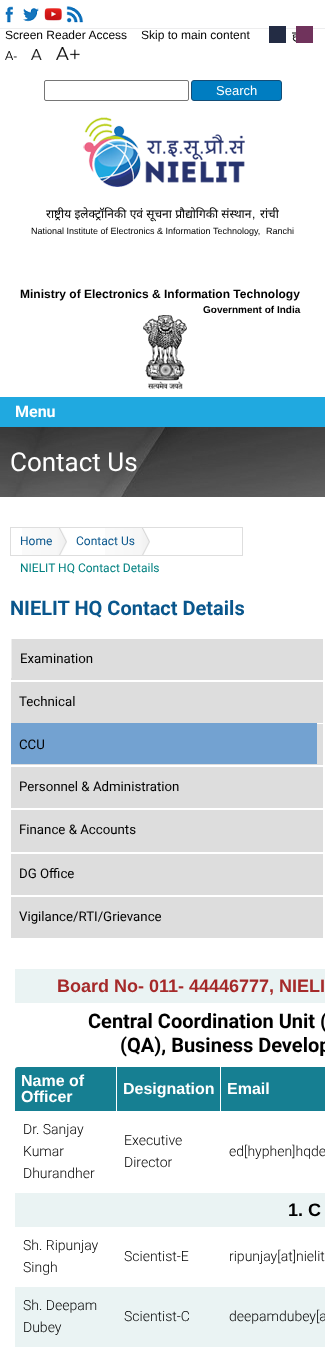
<!DOCTYPE html>
<meta charset="utf-8">
<style>body { margin: 0 } canvas { display: block }</style>
<canvas id="canvas" width="325" height="1360"></canvas>
<script type="module">
  const canvas = document.getElementById("canvas");
  const ctx = canvas.getContext("2d");
  ctx.miterLimit = 4;
  ctx.fontKerning = "normal";
  async function loadImage(src) {
    const img = new Image();
    img.src = src;
    await img.decode();
    return img;
  }

  ctx.fillStyle = "#ffffff";
  ctx.fillRect(0, 0, 325, 1360);
  ctx.fillStyle = "#ededee";
  ctx.fillRect(0, 28, 325, 1);
  ctx.drawImage(await loadImage("img1.png"), 5, 6, 8, 17);
  ctx.drawImage(await loadImage("img2.png"), 23, 8, 16, 14);
  ctx.drawImage(await loadImage("img3.png"), 44, 8, 18, 13);
  ctx.drawImage(await loadImage("img4.png"), 66, 6, 18, 17);
  ctx.font = "12px Liberation Sans";
  ctx.fillStyle = "#000000";
  ctx.fillText("Screen Reader Access", 5, 39);
  ctx.fillText("Skip to main content", 141, 39);
  ctx.fillStyle = "#232c44";
  ctx.fillRect(269, 26, 17, 17);
  ctx.font = "12px Noto Sans";
  ctx.fillStyle = "#000000";
  ctx.fillText("ह", 292, 40);
  ctx.fillStyle = "#70335c";
  ctx.fillRect(296, 26, 17, 17);
  ctx.drawImage(await loadImage("img5.png"), 5, 51, 12, 9);
  ctx.drawImage(await loadImage("img6.png"), 31, 49, 11, 11);
  ctx.drawImage(await loadImage("img7.png"), 56, 47, 24, 13);
  ctx.beginPath();
  ctx.roundRect(44.5, 80.5, 144, 20, 1.5);
  ctx.strokeStyle = "#767676";
  ctx.stroke();
  ctx.fillStyle = "#007dc1";
  ctx.beginPath();
  ctx.roundRect(191.5, 80.5, 90, 20, 2.5);
  ctx.fill();
  ctx.strokeStyle = "#124d77";
  ctx.stroke();
  ctx.font = "13px Liberation Sans";
  ctx.fillStyle = "#ffffff";
  ctx.fillText("Search", 216, 95);
  ctx.drawImage(await loadImage("img8.png"), 83, 117, 162, 70);
  ctx.wordSpacing = "0.25px";
  ctx.font = "12px Noto Sans";
  ctx.fillStyle = "#000000";
  ctx.fillText("राष्ट्रीय इलेक्ट्रॉनिकी एवं सूचना प्रौद्योगिकी संस्थान", 46, 218);
  ctx.wordSpacing = "0px";
  ctx.font = "12px Liberation Sans";
  ctx.fillText(",", 252, 218);
  ctx.font = "12px Noto Sans";
  ctx.fillText("रांची", 260, 218);
  ctx.font = "9px Liberation Sans";
  ctx.fillText("National Institute of Electronics & Information Technology,", 31, 234);
  ctx.fillText("Ranchi", 266, 234);
  ctx.font = "bold 12px Liberation Sans";
  ctx.fillText("Ministry of Electronics & Information Technology", 20, 298);
  ctx.font = "bold 10px Liberation Sans";
  ctx.fillText("Government of India", 203, 313);
  ctx.drawImage(await loadImage("img9.png"), 143, 315, 44, 74);
  ctx.fillStyle = "#20a9e0";
  ctx.fillRect(0, 397, 325, 30);
  ctx.font = "bold 16px Roboto";
  ctx.fillStyle = "#ffffff";
  ctx.fillText("Menu", 15, 417);
  ctx.drawImage(await loadImage("img10.png"), 0, 427, 325, 70);
  ctx.font = "26px Roboto";
  ctx.fillText("Contact Us", 10, 471);
  ctx.strokeStyle = "#dedede";
  ctx.strokeRect(10.5, 527.5, 232, 28);
  ctx.drawImage(await loadImage("img11.png"), 22, 528, 45, 27);
  ctx.font = "12px Roboto";
  ctx.fillStyle = "#09568c";
  ctx.fillText("Home", 20, 545);
  ctx.drawImage(await loadImage("img12.png"), 105, 528, 45, 27);
  ctx.fillText("Contact Us", 76, 545);
  ctx.fillStyle = "#008080";
  ctx.fillText("NIELIT HQ Contact Details", 20, 572);
  ctx.font = "bold 20px Roboto";
  ctx.fillStyle = "#09568c";
  ctx.fillText("NIELIT HQ Contact Details", 10, 615);
  ctx.fillStyle = "#dddddd";
  ctx.fillRect(11, 639, 312, 41);
  ctx.fillStyle = "#eeeeee";
  ctx.fillRect(11, 639, 1, 39);
  ctx.font = "13.25px Roboto";
  ctx.fillStyle = "#000000";
  ctx.fillText("Examination", 20, 663);
  ctx.fillStyle = "#dddddd";
  ctx.fillRect(11, 682, 312, 41);
  ctx.fillStyle = "#000000";
  ctx.fillText("Technical", 19, 706);
  ctx.fillStyle = "#dddddd";
  ctx.fillRect(11, 724, 312, 41);
  ctx.fillStyle = "#73a2d1";
  ctx.fillRect(11, 723, 306, 41);
  ctx.fillStyle = "#000000";
  ctx.fillText("CCU", 19, 749);
  ctx.fillStyle = "#dddddd";
  ctx.fillRect(11, 767, 312, 41);
  ctx.fillStyle = "#000000";
  ctx.fillText("Personnel & Administration", 19, 791);
  ctx.fillStyle = "#dddddd";
  ctx.fillRect(11, 810, 312, 42);
  ctx.fillStyle = "#000000";
  ctx.fillText("Finance & Accounts", 19, 834);
  ctx.fillStyle = "#dddddd";
  ctx.fillRect(11, 854, 312, 41);
  ctx.fillStyle = "#000000";
  ctx.fillText("DG Office", 19, 878);
  ctx.fillStyle = "#dddddd";
  ctx.fillRect(11, 897, 312, 41);
  ctx.fillStyle = "#000000";
  ctx.fillText("Vigilance/RTI/Grievance", 19, 921);
  ctx.fillStyle = "#eaf3f3";
  ctx.fillRect(15, 969, 310, 34);
  ctx.font = "bold 18px Liberation Sans";
  ctx.fillStyle = "#a52a2a";
  ctx.fillText("Board No- 011- 44446777, NIELI", 57, 992);
  ctx.font = "bold 20px Roboto";
  ctx.fillStyle = "#000000";
  ctx.fillText("Central Coordination Unit (", 88, 1028);
  ctx.fillText("(QA), Business Develop", 120, 1052);
  ctx.fillStyle = "#167f92";
  ctx.beginPath();
  ctx.roundRect(15, 1067, 101, 44, [3, 0, 0, 0]);
  ctx.fill();
  ctx.font = "bold 16px Liberation Sans";
  ctx.fillStyle = "#ffffff";
  ctx.fillText("Name of", 21, 1086);
  ctx.fillText("Officer", 21, 1102);
  ctx.fillStyle = "#167f92";
  ctx.fillRect(117, 1067, 103, 44);
  ctx.fillStyle = "#ffffff";
  ctx.fillText("Designation", 123, 1094);
  ctx.fillStyle = "#167f92";
  ctx.fillRect(221, 1067, 104, 44);
  ctx.fillStyle = "#ffffff";
  ctx.fillText("Email", 227, 1094);
  ctx.font = "300 14px Roboto";
  ctx.fillStyle = "#000000";
  ctx.fillText("Dr. Sanjay", 23, 1134);
  ctx.fillText("Kumar", 23, 1156);
  ctx.fillText("Dhurandher", 23, 1178);
  ctx.fillText("Executive", 124, 1145);
  ctx.fillText("Director", 124, 1167);
  ctx.fillText("ed[hyphen]hqde", 229, 1156);
  ctx.fillStyle = "#eaf3f3";
  ctx.fillRect(15, 1193, 310, 34);
  ctx.font = "bold 18px Liberation Sans";
  ctx.fillStyle = "#000000";
  ctx.fillText("1. C", 288, 1216);
  ctx.font = "300 14px Roboto";
  ctx.fillText("Sh. Ripunjay", 23, 1250);
  ctx.fillText("Singh", 23, 1272);
  ctx.fillText("Scientist-E", 124, 1261);
  ctx.fillText("ripunjay[at]nielit", 229, 1261);
  ctx.fillStyle = "#eaf3f3";
  ctx.fillRect(15, 1287, 310, 60);
  ctx.fillStyle = "#000000";
  ctx.fillText("Sh. Deepam", 23, 1310);
  ctx.fillText("Dubey", 23, 1332);
  ctx.fillText("Scientist-C", 124, 1321);
  ctx.fillText("deepamdubey[a", 229, 1321);
</script>
